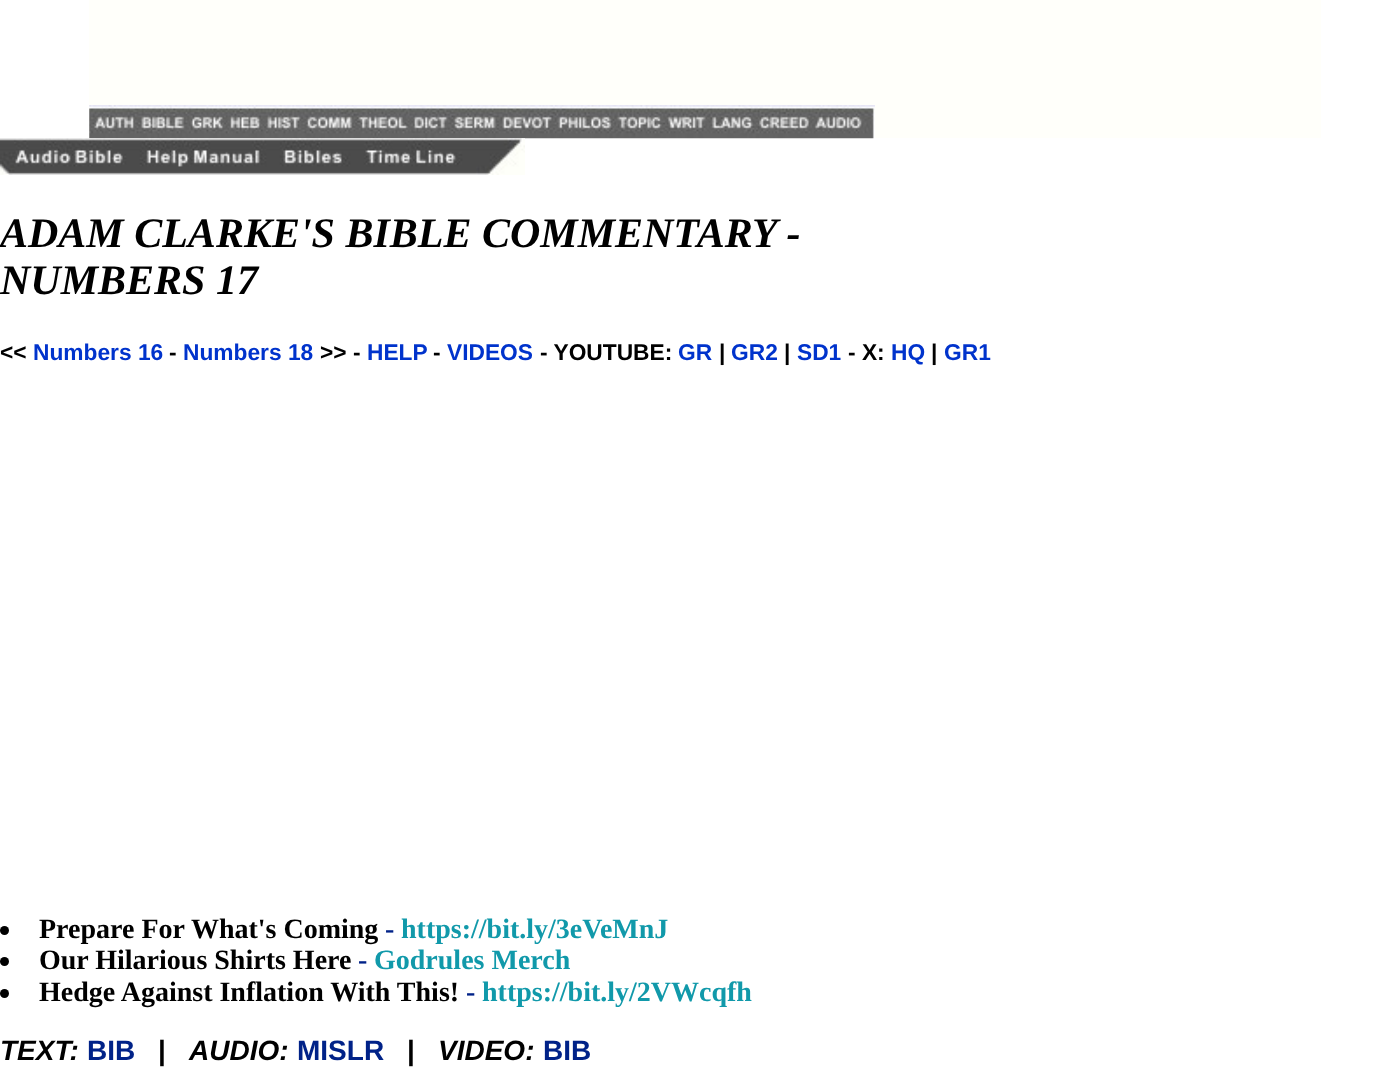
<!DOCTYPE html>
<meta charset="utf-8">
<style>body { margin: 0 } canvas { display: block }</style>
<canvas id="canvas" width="1390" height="1084"></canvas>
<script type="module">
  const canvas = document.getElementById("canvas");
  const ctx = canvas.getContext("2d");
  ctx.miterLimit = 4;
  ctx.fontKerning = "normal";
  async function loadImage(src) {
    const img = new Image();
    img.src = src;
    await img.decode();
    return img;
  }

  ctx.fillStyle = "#ffffff";
  ctx.fillRect(0, 0, 1390, 1084);
  ctx.fillStyle = "#fffffa";
  ctx.fillRect(89, 0, 1232, 138);
  ctx.drawImage(await loadImage("img1.png"), 89, 105, 786, 34);
  ctx.drawImage(await loadImage("img2.png"), 0, 138, 525, 37);
  ctx.font = "italic bold 42px Liberation Serif";
  ctx.fillStyle = "#000000";
  ctx.fillText("ADAM CLARKE'S BIBLE COMMENTARY -", 0, 247);
  ctx.fillText("NUMBERS 17", 0, 294);
  ctx.font = "bold 22.75px Liberation Sans";
  ctx.fillText("<<", 0, 360);
  ctx.fillStyle = "#0033cc";
  ctx.fillText("Numbers 16", 33, 360);
  ctx.fillStyle = "#000000";
  ctx.fillText("-", 169, 360);
  ctx.fillStyle = "#0033cc";
  ctx.fillText("Numbers 18", 183, 360);
  ctx.fillStyle = "#000000";
  ctx.fillText(">> -", 320, 360);
  ctx.fillStyle = "#0033cc";
  ctx.fillText("HELP", 367, 360);
  ctx.fillStyle = "#000000";
  ctx.fillText("-", 433, 360);
  ctx.fillStyle = "#0033cc";
  ctx.fillText("VIDEOS", 447, 360);
  ctx.fillStyle = "#000000";
  ctx.fillText("- YOUTUBE:", 540, 360);
  ctx.fillStyle = "#0033cc";
  ctx.fillText("GR", 678, 360);
  ctx.fillStyle = "#000000";
  ctx.fillText("|", 719, 360);
  ctx.fillStyle = "#0033cc";
  ctx.fillText("GR2", 731, 360);
  ctx.fillStyle = "#000000";
  ctx.fillText("|", 784, 360);
  ctx.fillStyle = "#0033cc";
  ctx.fillText("SD1", 797, 360);
  ctx.fillStyle = "#000000";
  ctx.fillText("- X:", 848, 360);
  ctx.fillStyle = "#0033cc";
  ctx.fillText("HQ", 891, 360);
  ctx.fillStyle = "#000000";
  ctx.fillText("|", 931, 360);
  ctx.fillStyle = "#0033cc";
  ctx.fillText("GR1", 944, 360);
  ctx.fillStyle = "#000000";
  ctx.beginPath();
  ctx.arc(4.5, 930.5, 4.5, 0, Math.PI * 2);
  ctx.fill();
  ctx.font = "bold 28px Liberation Serif";
  ctx.fillText("Prepare For What's Coming", 39, 938);
  ctx.fillStyle = "#002288";
  ctx.fillText("-", 385, 938);
  ctx.fillStyle = "#1199aa";
  ctx.fillText("https://bit.ly/3eVeMnJ", 401, 938);
  ctx.fillStyle = "#000000";
  ctx.beginPath();
  ctx.arc(4.5, 961.5, 4.5, 0, Math.PI * 2);
  ctx.fill();
  ctx.fillText("Our Hilarious Shirts Here", 39, 969);
  ctx.fillStyle = "#002288";
  ctx.fillText("-", 358, 969);
  ctx.fillStyle = "#1199aa";
  ctx.fillText("Godrules Merch", 374, 969);
  ctx.fillStyle = "#000000";
  ctx.fillText("Hedge Against Inflation With This!", 39, 1001);
  ctx.fillStyle = "#002288";
  ctx.fillText("-", 466, 1001);
  ctx.fillStyle = "#1199aa";
  ctx.fillText("https://bit.ly/2VWcqfh", 482, 1001);
  ctx.font = "italic bold 28px Liberation Sans";
  ctx.fillStyle = "#000000";
  ctx.fillText("TEXT:", 0, 1060);
  ctx.font = "bold 28px Liberation Sans";
  ctx.fillStyle = "#002288";
  ctx.fillText("BIB", 87, 1060);
  ctx.fillStyle = "#000000";
  ctx.fillText("|", 158, 1060);
  ctx.font = "italic bold 28px Liberation Sans";
  ctx.fillText("AUDIO:", 189, 1060);
  ctx.font = "bold 28px Liberation Sans";
  ctx.fillStyle = "#002288";
  ctx.fillText("MISLR", 297, 1060);
  ctx.fillStyle = "#000000";
  ctx.fillText("|", 407, 1060);
  ctx.font = "italic bold 28px Liberation Sans";
  ctx.fillText("VIDEO:", 438, 1060);
  ctx.font = "bold 28px Liberation Sans";
  ctx.fillStyle = "#002288";
  ctx.fillText("BIB", 543, 1060);
  ctx.fillStyle = "#000000";
  ctx.beginPath();
  ctx.arc(4.5, 993.5, 4.5, 0, Math.PI * 2);
  ctx.fill();
</script>
